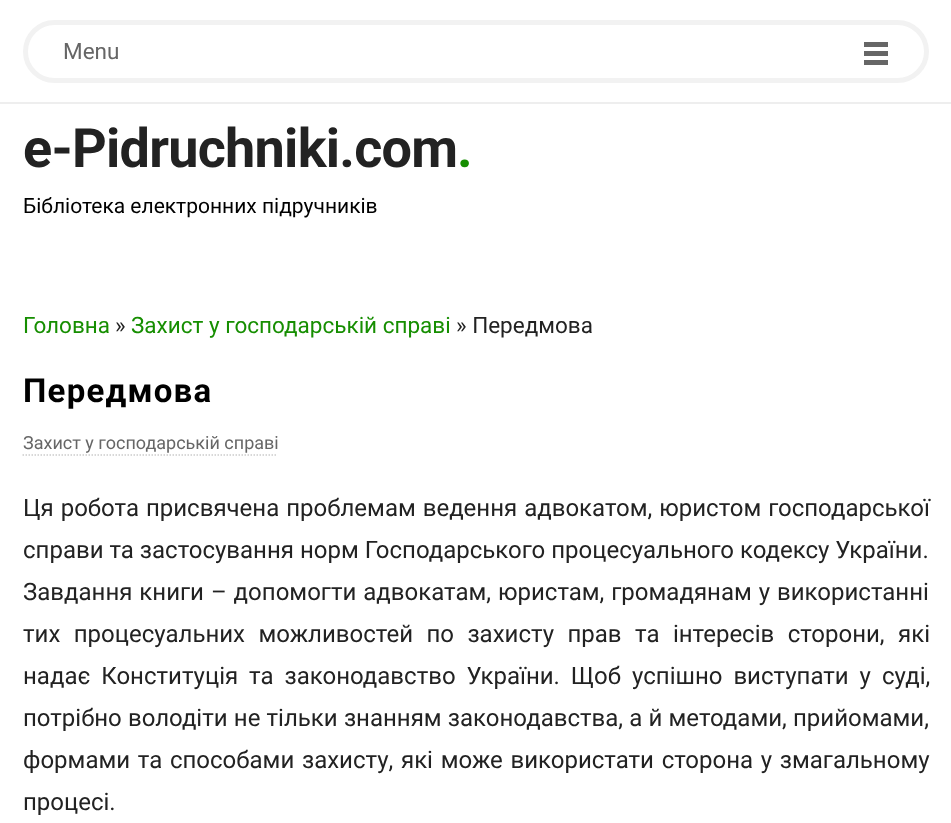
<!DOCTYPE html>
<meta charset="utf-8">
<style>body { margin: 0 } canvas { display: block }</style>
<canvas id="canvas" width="951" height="823"></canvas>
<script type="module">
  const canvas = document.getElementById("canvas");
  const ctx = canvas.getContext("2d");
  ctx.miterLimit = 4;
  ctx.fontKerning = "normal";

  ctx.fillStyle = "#ffffff";
  ctx.fillRect(0, 0, 951, 823);
  ctx.fillStyle = "#eeeeee";
  ctx.fillRect(0, 102, 951, 2);
  ctx.beginPath();
  ctx.roundRect(25.5, 22.5, 901, 58, 29);
  ctx.strokeStyle = "#f2f2f2";
  ctx.lineWidth = 5;
  ctx.stroke();
  ctx.font = "22.5px Roboto";
  ctx.fillStyle = "#666666";
  ctx.fillText("Menu", 63, 59);
  ctx.fillRect(864, 42, 24, 5);
  ctx.fillRect(864, 51, 24, 5);
  ctx.fillRect(864, 60, 24, 5);
  ctx.letterSpacing = "-0.75px";
  ctx.font = "bold 54px Roboto";
  ctx.fillStyle = "#222222";
  ctx.fillText("e-Pidruchniki.com", 23, 167);
  ctx.fillStyle = "#168e01";
  ctx.fillText(".", 457, 167);
  ctx.letterSpacing = "0px";
  ctx.font = "21px Roboto";
  ctx.fillStyle = "#000000";
  ctx.fillText("Бібліотека електронних підручників", 23, 213);
  ctx.font = "22.5px Roboto";
  ctx.fillStyle = "#168e01";
  ctx.fillText("Головна", 23, 333);
  ctx.fillStyle = "#222222";
  ctx.fillText("»", 115, 333);
  ctx.fillStyle = "#168e01";
  ctx.fillText("Захист у господарській справі", 131, 333);
  ctx.fillStyle = "#222222";
  ctx.fillText("» Передмова", 456, 333);
  ctx.letterSpacing = "1.25px";
  ctx.font = "bold 33px Roboto";
  ctx.fillStyle = "#000000";
  ctx.fillText("Передмова", 23, 402);
  ctx.letterSpacing = "0px";
  ctx.font = "18px Roboto";
  ctx.fillStyle = "#666666";
  ctx.fillText("Захист у господарській справі", 23, 449);
  ctx.beginPath();
  ctx.moveTo(22.5, 455);
  ctx.lineTo(277.5, 455);
  ctx.strokeStyle = "#cccccc";
  ctx.lineWidth = 1.5;
  ctx.setLineDash([1.5, 1.5]);
  ctx.stroke();
  ctx.wordSpacing = "1px";
  ctx.font = "24px Roboto";
  ctx.fillStyle = "#222222";
  ctx.fillText("Ця робота присвячена проблемам ведення адвокатом, юристом господарської", 23, 516);
  ctx.wordSpacing = "0px";
  ctx.fillText("справи та застосування норм Господарського процесуального кодексу України.", 23, 558);
  ctx.wordSpacing = "1px";
  ctx.fillText("Завдання книги – допомогти адвокатам, юристам, громадянам у використанні", 23, 600);
  ctx.wordSpacing = "7.5px";
  ctx.fillText("тих процесуальних можливостей по захисту прав та інтересів сторони, які", 23, 642);
  ctx.wordSpacing = "5px";
  ctx.fillText("надає Конституція та законодавство України. Щоб успішно виступати у суді,", 23, 684);
  ctx.wordSpacing = "0.25px";
  ctx.fillText("потрібно володіти не тільки знанням законодавства, а й методами, прийомами,", 23, 726);
  ctx.wordSpacing = "1.75px";
  ctx.fillText("формами та способами захисту, які може використати сторона у змагальному", 23, 768);
  ctx.wordSpacing = "0px";
  ctx.fillText("процесі.", 23, 810);
</script>
